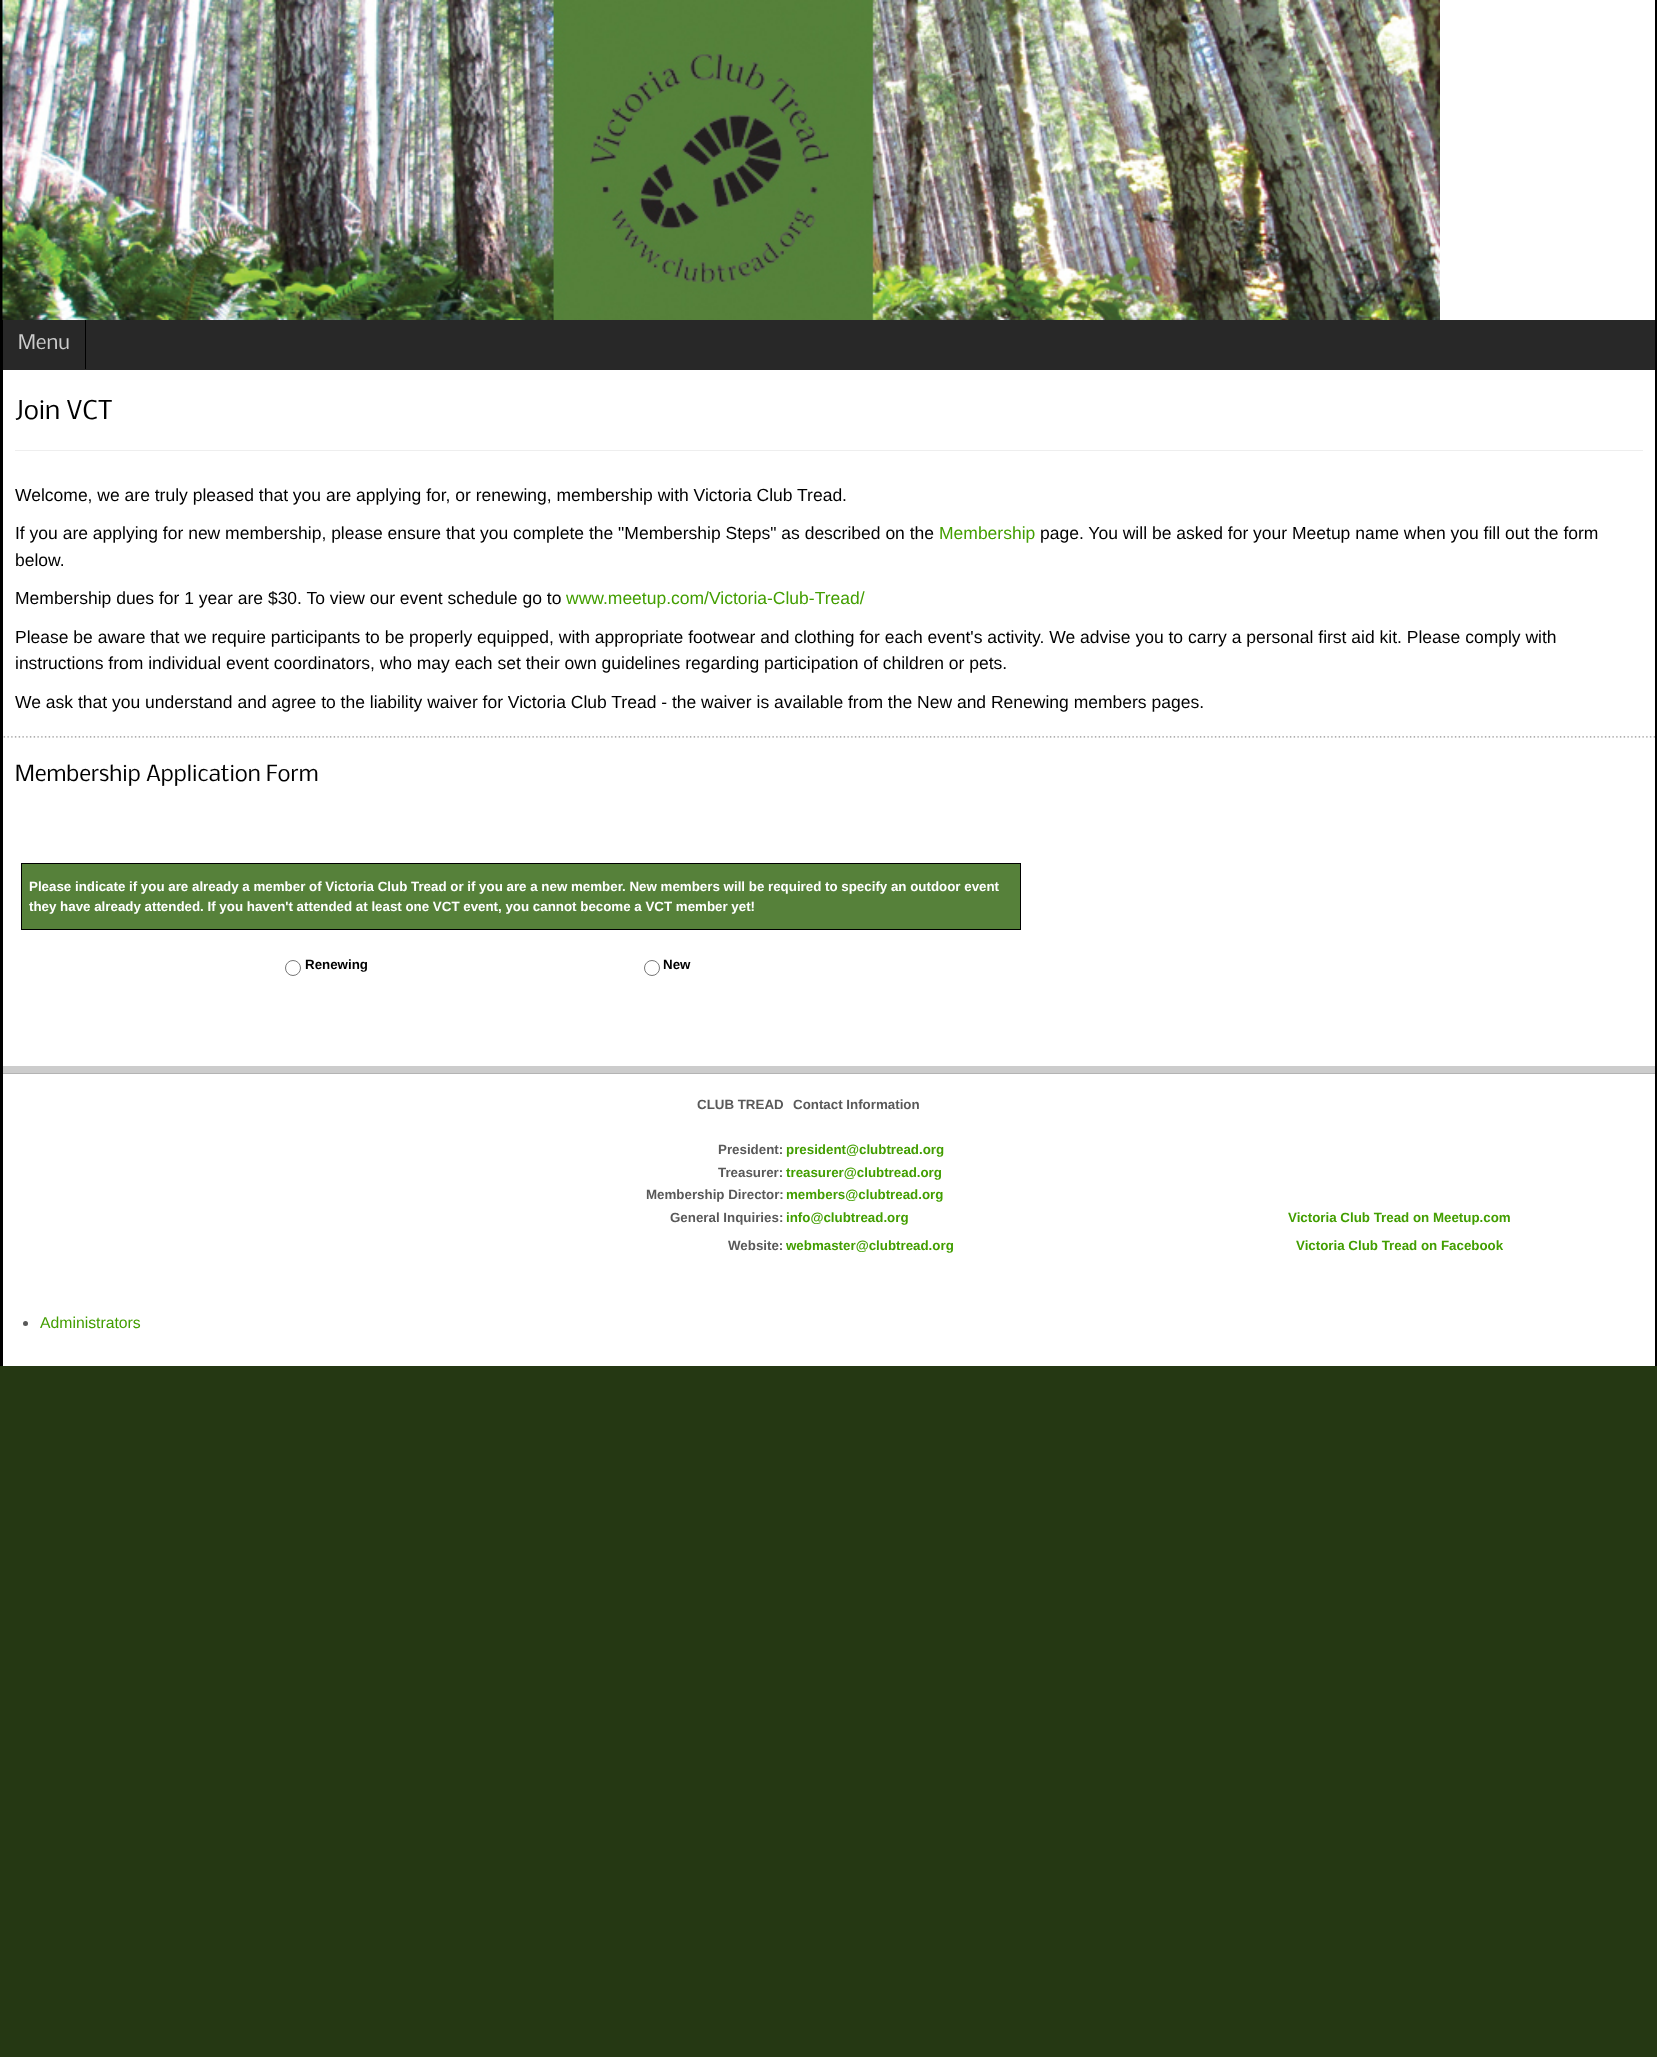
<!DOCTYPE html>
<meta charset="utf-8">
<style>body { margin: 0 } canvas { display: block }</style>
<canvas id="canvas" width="1657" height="2057"></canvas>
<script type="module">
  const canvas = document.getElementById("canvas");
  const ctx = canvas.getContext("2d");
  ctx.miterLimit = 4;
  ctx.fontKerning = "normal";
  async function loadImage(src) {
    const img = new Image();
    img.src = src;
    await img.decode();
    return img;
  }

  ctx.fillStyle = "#253813";
  ctx.fillRect(0, 0, 1657, 2057);
  ctx.fillStyle = "#ffffff";
  ctx.fillRect(3, 0, 1652, 1366);
  ctx.fillStyle = "#000000";
  ctx.fillRect(1655, 0, 2, 1366);
  ctx.fillRect(0, 0, 3, 1366);
  ctx.drawImage(await loadImage("img1.png"), 2, 0, 1438, 320);
  ctx.fillStyle = "#282828";
  ctx.fillRect(3, 320, 1652, 50);
  ctx.fillStyle = "#000000";
  ctx.fillRect(85, 320, 1, 49);
  ctx.font = "19px Nobile";
  ctx.fillStyle = "#cccccc";
  ctx.fillText("Menu", 18, 349);
  ctx.fillRect(3, 1066, 1652, 7);
  ctx.fillStyle = "#eeeeee";
  ctx.fillRect(15, 450, 1628, 1);
  ctx.font = "24.5px Nobile";
  ctx.fillStyle = "#000000";
  ctx.fillText("Join VCT", 15, 419);
  ctx.font = "17.5px Liberation Sans";
  ctx.fillText("Welcome, we are truly pleased that you are applying for, or renewing, membership with Victoria Club Tread.", 15, 501);
  ctx.fillText("If you are applying for new membership, please ensure that you complete the \"Membership Steps\" as described on the", 15, 539);
  ctx.fillStyle = "#429e00";
  ctx.fillText("Membership", 939, 539);
  ctx.fillStyle = "#000000";
  ctx.fillText("page. You will be asked for your Meetup name when you fill out the form", 1040, 539);
  ctx.fillText("below.", 15, 566);
  ctx.fillText("Membership dues for 1 year are $30. To view our event schedule go to", 15, 604);
  ctx.fillStyle = "#429e00";
  ctx.fillText("www.meetup.com/Victoria-Club-Tread/", 566, 604);
  ctx.fillStyle = "#000000";
  ctx.fillText("Please be aware that we require participants to be properly equipped, with appropriate footwear and clothing for each event's activity. We advise you to carry a personal first aid kit. Please comply with", 15, 643);
  ctx.fillText("instructions from individual event coordinators, who may each set their own guidelines regarding participation of children or pets.", 15, 669);
  ctx.fillText("We ask that you understand and agree to the liability waiver for Victoria Club Tread - the waiver is available from the New and Renewing members pages.", 15, 708);
  ctx.drawImage(await loadImage("img2.png"), 3, 736, 1652, 2);
  ctx.font = "21px Nobile";
  ctx.fillText("Membership Application Form", 15, 781);
  ctx.fillStyle = "#56813a";
  ctx.fillRect(22, 864, 998, 65);
  ctx.fillStyle = "#000000";
  ctx.fillRect(21, 863, 1000, 1);
  ctx.fillRect(1020, 863, 1, 67);
  ctx.fillRect(21, 929, 1000, 1);
  ctx.fillRect(21, 863, 1, 67);
  ctx.font = "bold 13.33px Liberation Sans";
  ctx.fillStyle = "#ffffff";
  ctx.fillText("Please indicate if you are already a member of Victoria Club Tread or if you are a new member. New members will be required to specify an outdoor event", 29, 891);
  ctx.fillText("they have already attended. If you haven't attended at least one VCT event, you cannot become a VCT member yet!", 29, 911);
  ctx.beginPath();
  ctx.arc(293, 968, 7.5, 0, Math.PI * 2);
  ctx.strokeStyle = "#767676";
  ctx.stroke();
  ctx.fillStyle = "#000000";
  ctx.fillText("Renewing", 305, 969);
  ctx.beginPath();
  ctx.arc(652, 968, 7.5, 0, Math.PI * 2);
  ctx.stroke();
  ctx.fillText("New", 663, 969);
  ctx.fillStyle = "#b3b3b3";
  ctx.fillRect(3, 1073, 1652, 1);
  ctx.fillStyle = "#595959";
  ctx.fillText("CLUB TREAD", 697, 1109);
  ctx.fillText("Contact Information", 793, 1109);
  ctx.fillText("President:", 718, 1154);
  ctx.fillStyle = "#429e00";
  ctx.fillText("president@clubtread.org", 786, 1154);
  ctx.fillStyle = "#595959";
  ctx.fillText("Treasurer:", 718, 1177);
  ctx.fillStyle = "#429e00";
  ctx.fillText("treasurer@clubtread.org", 786, 1177);
  ctx.fillStyle = "#595959";
  ctx.fillText("Membership Director:", 646, 1199);
  ctx.fillStyle = "#429e00";
  ctx.fillText("members@clubtread.org", 786, 1199);
  ctx.fillStyle = "#595959";
  ctx.fillText("General Inquiries:", 670, 1222);
  ctx.fillStyle = "#429e00";
  ctx.fillText("info@clubtread.org", 786, 1222);
  ctx.fillText("Victoria Club Tread on Meetup.com", 1288, 1222);
  ctx.fillStyle = "#595959";
  ctx.fillText("Website:", 728, 1250);
  ctx.fillStyle = "#429e00";
  ctx.fillText("webmaster@clubtread.org", 786, 1250);
  ctx.fillText("Victoria Club Tread on Facebook", 1296, 1250);
  ctx.fillStyle = "#595959";
  ctx.beginPath();
  ctx.arc(25.5, 1323.5, 2.5, 0, Math.PI * 2);
  ctx.fill();
  ctx.font = "15.75px Liberation Sans";
  ctx.fillStyle = "#429e00";
  ctx.fillText("Administrators", 40, 1328);
</script>
